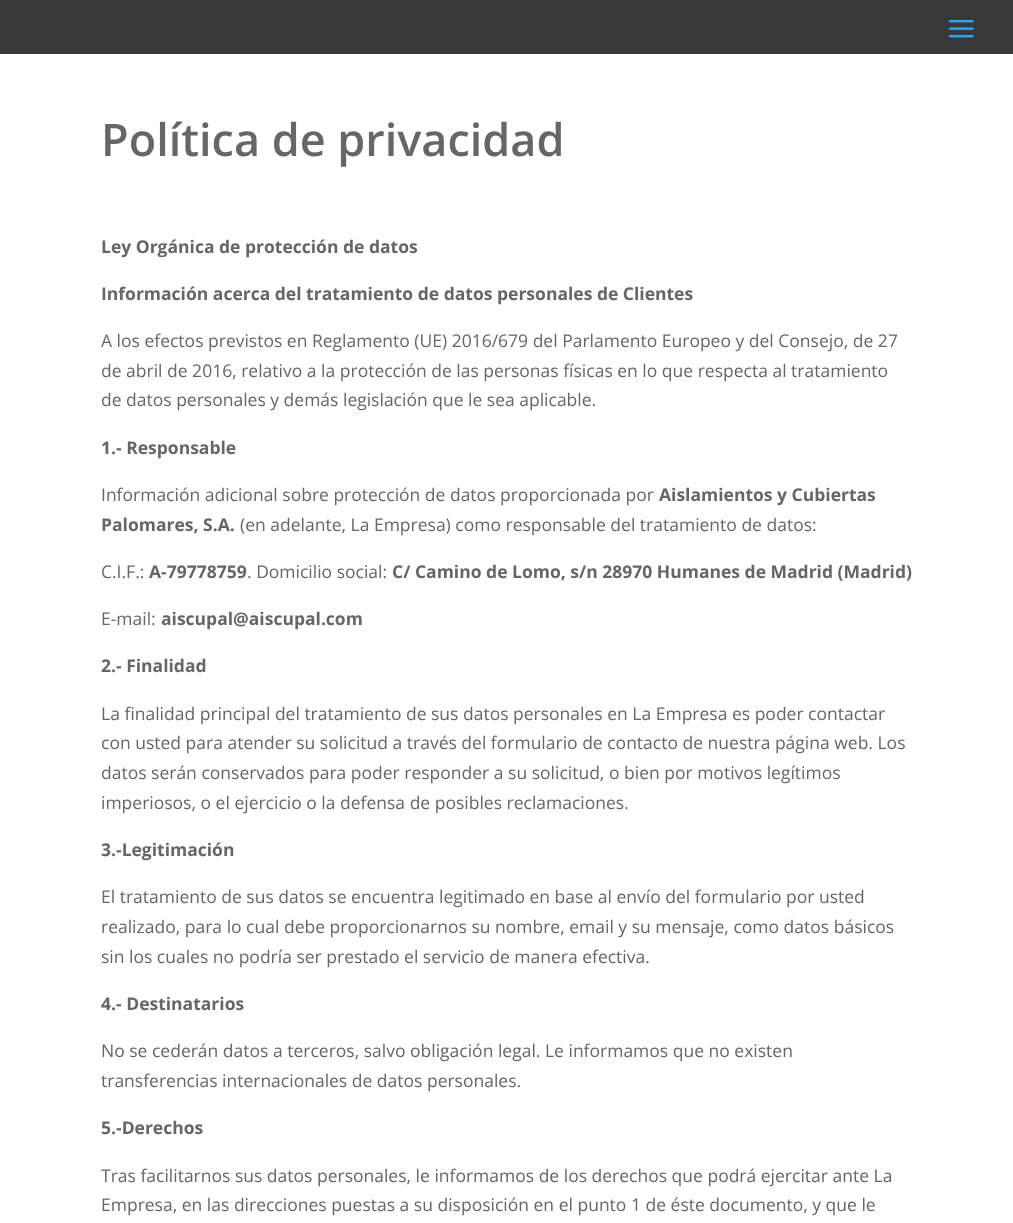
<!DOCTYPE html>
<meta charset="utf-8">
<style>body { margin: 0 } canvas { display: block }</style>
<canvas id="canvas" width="1013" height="1223"></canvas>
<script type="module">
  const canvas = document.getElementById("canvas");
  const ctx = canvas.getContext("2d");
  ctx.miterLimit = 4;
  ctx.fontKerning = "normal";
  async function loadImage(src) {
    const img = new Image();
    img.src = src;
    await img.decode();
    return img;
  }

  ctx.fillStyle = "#ffffff";
  ctx.fillRect(0, 0, 1013, 1223);
  ctx.fillStyle = "#383838";
  ctx.fillRect(0, 0, 1013, 54);
  ctx.drawImage(await loadImage("img1.png"), 948, 19, 26, 19);
  ctx.font = "600 45px Open Sans";
  ctx.fillStyle = "#666666";
  ctx.fillText("Política de privacidad", 101, 156);
  ctx.font = "bold 17.5px Open Sans";
  ctx.fillText("Ley Orgánica de protección de datos", 101, 253);
  ctx.fillText("Información acerca del tratamiento de datos personales de Clientes", 101, 300);
  ctx.font = "17.5px Open Sans";
  ctx.fillText("A los efectos previstos en Reglamento (UE) 2016/679 del Parlamento Europeo y del Consejo, de 27", 101, 347);
  ctx.fillText("de abril de 2016, relativo a la protección de las personas físicas en lo que respecta al tratamiento", 101, 377);
  ctx.fillText("de datos personales y demás legislación que le sea aplicable.", 101, 406);
  ctx.font = "bold 17.5px Open Sans";
  ctx.fillText("1.- Responsable", 101, 454);
  ctx.font = "17.5px Open Sans";
  ctx.fillText("Información adicional sobre protección de datos proporcionada por", 101, 501);
  ctx.font = "bold 17.5px Open Sans";
  ctx.fillText("Aislamientos y Cubiertas", 659, 501);
  ctx.fillText("Palomares, S.A.", 101, 531);
  ctx.font = "17.5px Open Sans";
  ctx.fillText("(en adelante, La Empresa) como responsable del tratamiento de datos:", 240, 531);
  ctx.fillText("C.I.F.:", 101, 578);
  ctx.font = "bold 17.5px Open Sans";
  ctx.fillText("A-79778759", 149, 578);
  ctx.font = "17.5px Open Sans";
  ctx.fillText(". Domicilio social:", 247, 578);
  ctx.font = "bold 17.5px Open Sans";
  ctx.fillText("C/ Camino de Lomo, s/n 28970 Humanes de Madrid (Madrid)", 392, 578);
  ctx.font = "17.5px Open Sans";
  ctx.fillText("E-mail:", 101, 625);
  ctx.font = "bold 17.5px Open Sans";
  ctx.fillText("aiscupal@aiscupal.com", 161, 625);
  ctx.fillText("2.- Finalidad", 101, 672);
  ctx.font = "17.5px Open Sans";
  ctx.fillText("La finalidad principal del tratamiento de sus datos personales en La Empresa es poder contactar", 101, 720);
  ctx.fillText("con usted para atender su solicitud a través del formulario de contacto de nuestra página web. Los", 101, 749);
  ctx.fillText("datos serán conservados para poder responder a su solicitud, o bien por motivos legítimos", 101, 779);
  ctx.fillText("imperiosos, o el ejercicio o la defensa de posibles reclamaciones.", 101, 809);
  ctx.font = "bold 17.5px Open Sans";
  ctx.fillText("3.-Legitimación", 101, 856);
  ctx.font = "17.5px Open Sans";
  ctx.fillText("El tratamiento de sus datos se encuentra legitimado en base al envío del formulario por usted", 101, 903);
  ctx.fillText("realizado, para lo cual debe proporcionarnos su nombre, email y su mensaje, como datos básicos", 101, 933);
  ctx.fillText("sin los cuales no podría ser prestado el servicio de manera efectiva.", 101, 963);
  ctx.font = "bold 17.5px Open Sans";
  ctx.fillText("4.- Destinatarios", 101, 1010);
  ctx.font = "17.5px Open Sans";
  ctx.fillText("No se cederán datos a terceros, salvo obligación legal. Le informamos que no existen", 101, 1057);
  ctx.fillText("transferencias internacionales de datos personales.", 101, 1087);
  ctx.font = "bold 17.5px Open Sans";
  ctx.fillText("5.-Derechos", 101, 1134);
  ctx.font = "17.5px Open Sans";
  ctx.fillText("Tras facilitarnos sus datos personales, le informamos de los derechos que podrá ejercitar ante La", 101, 1182);
  ctx.fillText("Empresa, en las direcciones puestas a su disposición en el punto 1 de éste documento, y que le", 101, 1211);
</script>
